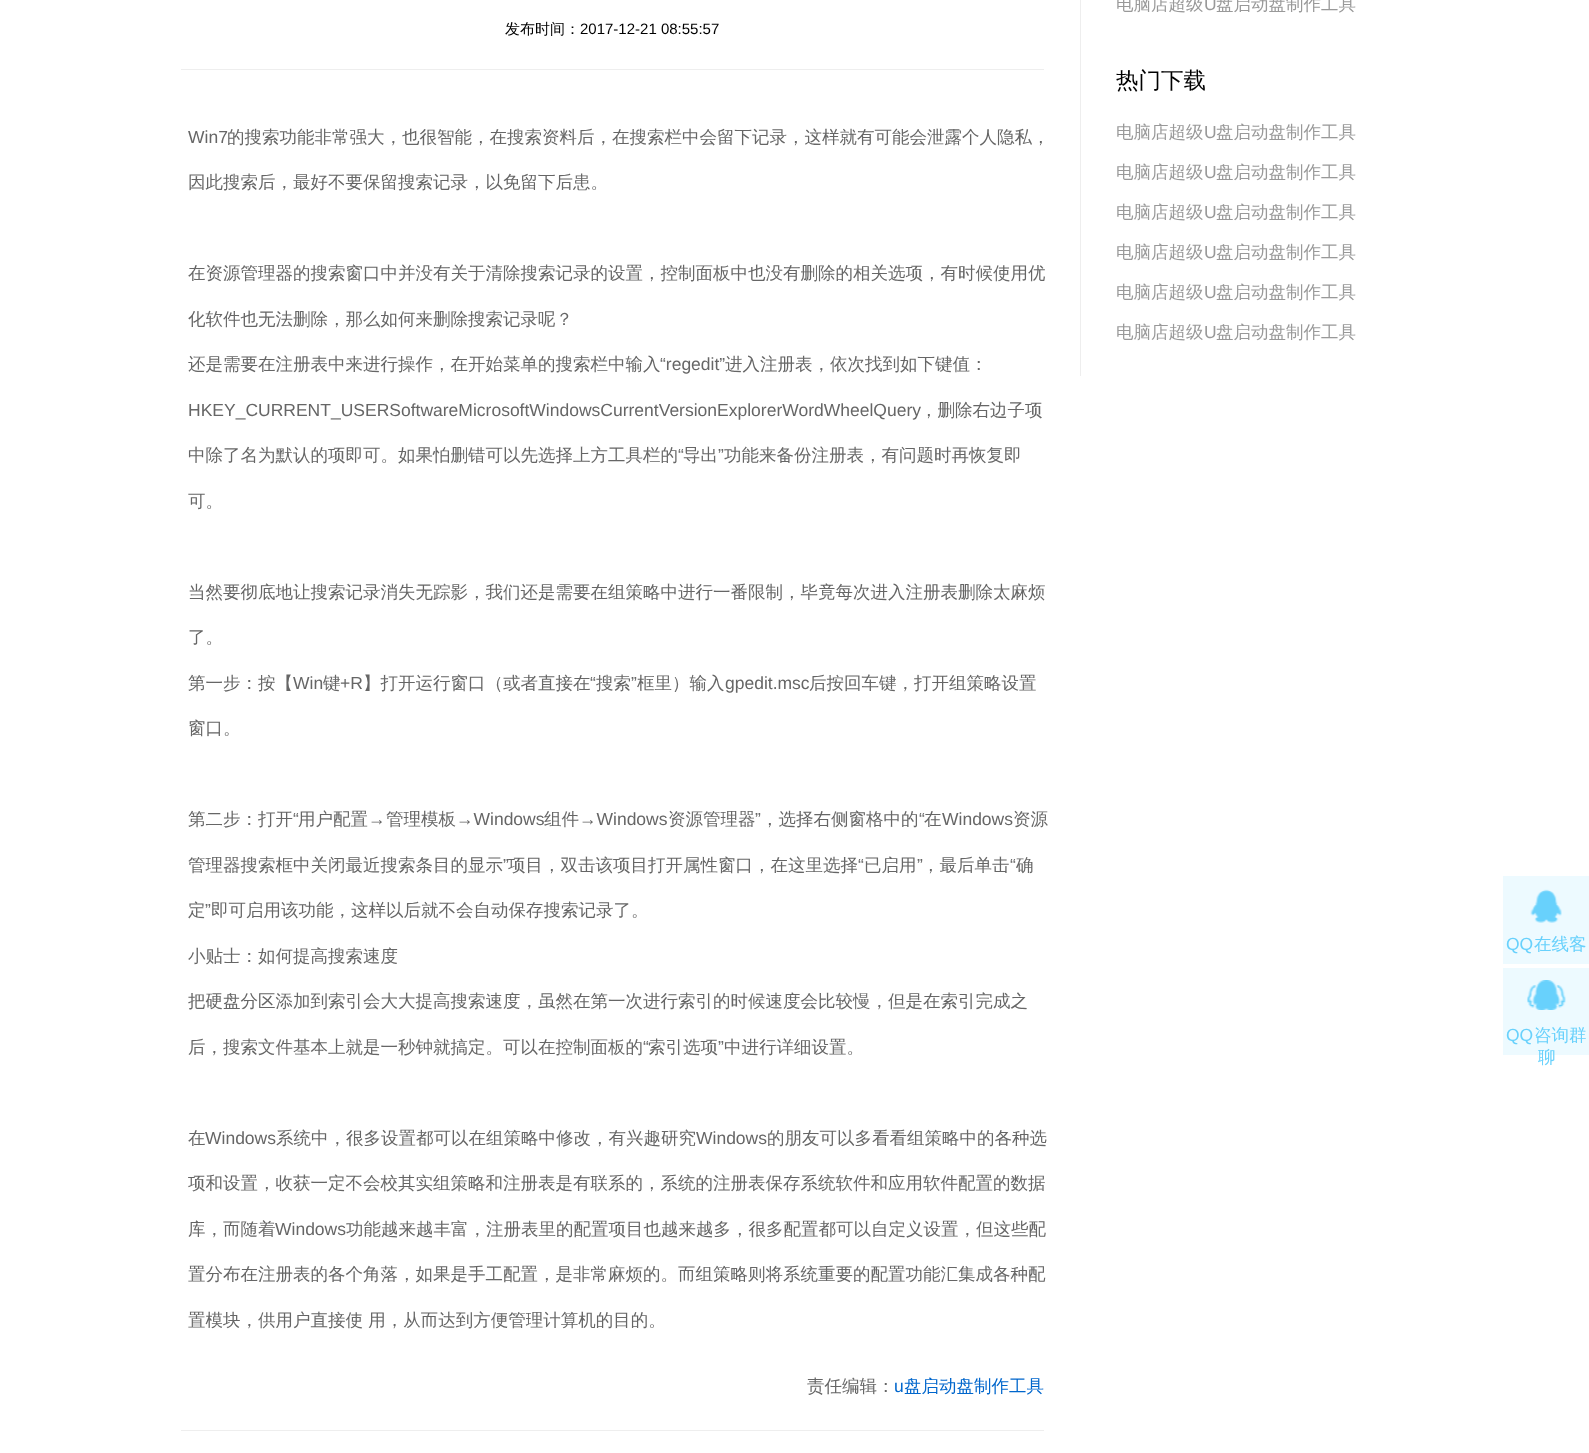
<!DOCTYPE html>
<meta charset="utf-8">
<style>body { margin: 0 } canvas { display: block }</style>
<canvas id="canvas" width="1589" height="1453"></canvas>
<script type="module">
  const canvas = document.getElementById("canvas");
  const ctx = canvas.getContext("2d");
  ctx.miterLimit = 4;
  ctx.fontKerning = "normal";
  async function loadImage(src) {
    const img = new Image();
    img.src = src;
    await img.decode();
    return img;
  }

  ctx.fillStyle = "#ffffff";
  ctx.fillRect(0, 0, 1589, 1453);
  ctx.fillStyle = "#eeeeee";
  ctx.fillRect(181, 69, 863, 1);
  ctx.font = "500 15px WenQuanYi Zen Hei";
  ctx.fillStyle = "#000000";
  ctx.fillText("发布时间：", 505, 34);
  ctx.font = "15px Liberation Sans";
  ctx.fillText("2017-12-21 08:55:57", 580, 34);
  ctx.font = "17.5px Liberation Sans";
  ctx.fillStyle = "#666666";
  ctx.fillText("Win7", 188, 143);
  ctx.font = "500 17.5px WenQuanYi Zen Hei";
  ctx.fillText("的搜索功能非常强大，也很智能，在搜索资料后，在搜索栏中会留下记录，这样就有可能会泄露个人隐私，", 227, 143);
  ctx.fillText("因此搜索后，最好不要保留搜索记录，以免留下后患。", 188, 188);
  ctx.fillText("在资源管理器的搜索窗口中并没有关于清除搜索记录的设置，控制面板中也没有删除的相关选项，有时候使用优", 188, 279);
  ctx.fillText("化软件也无法删除，那么如何来删除搜索记录呢？", 188, 325);
  ctx.fillText("还是需要在注册表中来进行操作，在开始菜单的搜索栏中输入", 188, 370);
  ctx.font = "17.5px Liberation Sans";
  ctx.fillText("“regedit”", 660, 370);
  ctx.font = "500 17.5px WenQuanYi Zen Hei";
  ctx.fillText("进入注册表，依次找到如下键值：", 725, 370);
  ctx.font = "17.5px Liberation Sans";
  ctx.fillText("HKEY_CURRENT_USERSoftwareMicrosoftWindowsCurrentVersionExplorerWordWheelQuery", 188, 416);
  ctx.font = "500 17.5px WenQuanYi Zen Hei";
  ctx.fillText("，删除右边子项", 920, 416);
  ctx.fillText("中除了名为默认的项即可。如果怕删错可以先选择上方工具栏的", 188, 461);
  ctx.font = "17.5px Liberation Sans";
  ctx.fillText("“", 678, 461);
  ctx.font = "500 17.5px WenQuanYi Zen Hei";
  ctx.fillText("导出", 683, 461);
  ctx.font = "17.5px Liberation Sans";
  ctx.fillText("”", 718, 461);
  ctx.font = "500 17.5px WenQuanYi Zen Hei";
  ctx.fillText("功能来备份注册表，有问题时再恢复即", 724, 461);
  ctx.fillText("可。", 188, 507);
  ctx.fillText("当然要彻底地让搜索记录消失无踪影，我们还是需要在组策略中进行一番限制，毕竟每次进入注册表删除太麻烦", 188, 598);
  ctx.fillText("了。", 188, 643);
  ctx.fillText("第一步：按【", 188, 689);
  ctx.font = "17.5px Liberation Sans";
  ctx.fillText("Win", 293, 689);
  ctx.font = "500 17.5px WenQuanYi Zen Hei";
  ctx.fillText("键", 323, 689);
  ctx.font = "17.5px Liberation Sans";
  ctx.fillText("+R", 340, 689);
  ctx.font = "500 17.5px WenQuanYi Zen Hei";
  ctx.fillText("】打开运行窗口（或者直接在", 363, 689);
  ctx.font = "17.5px Liberation Sans";
  ctx.fillText("“", 590, 689);
  ctx.font = "500 17.5px WenQuanYi Zen Hei";
  ctx.fillText("搜索", 596, 689);
  ctx.font = "17.5px Liberation Sans";
  ctx.fillText("”", 631, 689);
  ctx.font = "500 17.5px WenQuanYi Zen Hei";
  ctx.fillText("框里）输入", 637, 689);
  ctx.font = "17.5px Liberation Sans";
  ctx.fillText("gpedit.msc", 725, 689);
  ctx.font = "500 17.5px WenQuanYi Zen Hei";
  ctx.fillText("后按回车键，打开组策略设置", 809, 689);
  ctx.fillText("窗口。", 188, 734);
  ctx.fillText("第二步：打开", 188, 825);
  ctx.font = "17.5px Liberation Sans";
  ctx.fillText("“", 293, 825);
  ctx.font = "500 17.5px WenQuanYi Zen Hei";
  ctx.fillText("用户配置", 298, 825);
  ctx.font = "17.5px Liberation Sans";
  ctx.fillText("→", 368, 825);
  ctx.font = "500 17.5px WenQuanYi Zen Hei";
  ctx.fillText("管理模板", 386, 825);
  ctx.font = "17.5px Liberation Sans";
  ctx.fillText("→Windows", 456, 825);
  ctx.font = "500 17.5px WenQuanYi Zen Hei";
  ctx.fillText("组件", 544, 825);
  ctx.font = "17.5px Liberation Sans";
  ctx.fillText("→Windows", 579, 825);
  ctx.font = "500 17.5px WenQuanYi Zen Hei";
  ctx.fillText("资源管理器", 668, 825);
  ctx.font = "17.5px Liberation Sans";
  ctx.fillText("”", 755, 825);
  ctx.font = "500 17.5px WenQuanYi Zen Hei";
  ctx.fillText("，选择右侧窗格中的", 761, 825);
  ctx.font = "17.5px Liberation Sans";
  ctx.fillText("“", 919, 825);
  ctx.font = "500 17.5px WenQuanYi Zen Hei";
  ctx.fillText("在", 924, 825);
  ctx.font = "17.5px Liberation Sans";
  ctx.fillText("Windows", 942, 825);
  ctx.font = "500 17.5px WenQuanYi Zen Hei";
  ctx.fillText("资源", 1013, 825);
  ctx.fillText("管理器搜索框中关闭最近搜索条目的显示", 188, 871);
  ctx.font = "17.5px Liberation Sans";
  ctx.fillText("”", 503, 871);
  ctx.font = "500 17.5px WenQuanYi Zen Hei";
  ctx.fillText("项目，双击该项目打开属性窗口，在这里选择", 508, 871);
  ctx.font = "17.5px Liberation Sans";
  ctx.fillText("“", 858, 871);
  ctx.font = "500 17.5px WenQuanYi Zen Hei";
  ctx.fillText("已启用", 864, 871);
  ctx.font = "17.5px Liberation Sans";
  ctx.fillText("”", 917, 871);
  ctx.font = "500 17.5px WenQuanYi Zen Hei";
  ctx.fillText("，最后单击", 922, 871);
  ctx.font = "17.5px Liberation Sans";
  ctx.fillText("“", 1010, 871);
  ctx.font = "500 17.5px WenQuanYi Zen Hei";
  ctx.fillText("确", 1016, 871);
  ctx.fillText("定", 188, 916);
  ctx.font = "17.5px Liberation Sans";
  ctx.fillText("”", 205, 916);
  ctx.font = "500 17.5px WenQuanYi Zen Hei";
  ctx.fillText("即可启用该功能，这样以后就不会自动保存搜索记录了。", 211, 916);
  ctx.fillText("小贴士：如何提高搜索速度", 188, 962);
  ctx.fillText("把硬盘分区添加到索引会大大提高搜索速度，虽然在第一次进行索引的时候速度会比较慢，但是在索引完成之", 188, 1007);
  ctx.fillText("后，搜索文件基本上就是一秒钟就搞定。可以在控制面板的", 188, 1053);
  ctx.font = "17.5px Liberation Sans";
  ctx.fillText("“", 643, 1053);
  ctx.font = "500 17.5px WenQuanYi Zen Hei";
  ctx.fillText("索引选项", 648, 1053);
  ctx.font = "17.5px Liberation Sans";
  ctx.fillText("”", 718, 1053);
  ctx.font = "500 17.5px WenQuanYi Zen Hei";
  ctx.fillText("中进行详细设置。", 724, 1053);
  ctx.fillText("在", 188, 1144);
  ctx.font = "17.5px Liberation Sans";
  ctx.fillText("Windows", 205, 1144);
  ctx.font = "500 17.5px WenQuanYi Zen Hei";
  ctx.fillText("系统中，很多设置都可以在组策略中修改，有兴趣研究", 276, 1144);
  ctx.font = "17.5px Liberation Sans";
  ctx.fillText("Windows", 696, 1144);
  ctx.font = "500 17.5px WenQuanYi Zen Hei";
  ctx.fillText("的朋友可以多看看组策略中的各种选", 767, 1144);
  ctx.fillText("项和设置，收获一定不会校其实组策略和注册表是有联系的，系统的注册表保存系统软件和应用软件配置的数据", 188, 1189);
  ctx.fillText("库，而随着", 188, 1235);
  ctx.font = "17.5px Liberation Sans";
  ctx.fillText("Windows", 275, 1235);
  ctx.font = "500 17.5px WenQuanYi Zen Hei";
  ctx.fillText("功能越来越丰富，注册表里的配置项目也越来越多，很多配置都可以自定义设置，但这些配", 346, 1235);
  ctx.fillText("置分布在注册表的各个角落，如果是手工配置，是非常麻烦的。而组策略则将系统重要的配置功能汇集成各种配", 188, 1280);
  ctx.fillText("置模块，供用户直接使 用，从而达到方便管理计算机的目的。", 188, 1326);
  ctx.fillStyle = "#eeeeee";
  ctx.fillRect(181, 1430, 863, 1);
  ctx.fillStyle = "#666666";
  ctx.fillText("责任编辑：", 807, 1392);
  ctx.font = "17.5px Liberation Sans";
  ctx.fillStyle = "#0066cc";
  ctx.fillText("u", 894, 1392);
  ctx.font = "500 17.5px WenQuanYi Zen Hei";
  ctx.fillText("盘启动盘制作工具", 904, 1392);
  ctx.fillStyle = "#eeeeee";
  ctx.fillRect(1080, 0, 1, 376);
  ctx.fillStyle = "#999999";
  ctx.fillText("电脑店超级", 1116, 10);
  ctx.font = "17.5px Liberation Sans";
  ctx.fillText("U", 1204, 10);
  ctx.font = "500 17.5px WenQuanYi Zen Hei";
  ctx.fillText("盘启动盘制作工具", 1216, 10);
  ctx.font = "500 22.5px WenQuanYi Zen Hei";
  ctx.fillStyle = "#000000";
  ctx.fillText("热门下载", 1116, 88);
  ctx.font = "500 17.5px WenQuanYi Zen Hei";
  ctx.fillStyle = "#999999";
  ctx.fillText("电脑店超级", 1116, 138);
  ctx.font = "17.5px Liberation Sans";
  ctx.fillText("U", 1204, 138);
  ctx.font = "500 17.5px WenQuanYi Zen Hei";
  ctx.fillText("盘启动盘制作工具", 1216, 138);
  ctx.fillText("电脑店超级", 1116, 178);
  ctx.font = "17.5px Liberation Sans";
  ctx.fillText("U", 1204, 178);
  ctx.font = "500 17.5px WenQuanYi Zen Hei";
  ctx.fillText("盘启动盘制作工具", 1216, 178);
  ctx.fillText("电脑店超级", 1116, 218);
  ctx.font = "17.5px Liberation Sans";
  ctx.fillText("U", 1204, 218);
  ctx.font = "500 17.5px WenQuanYi Zen Hei";
  ctx.fillText("盘启动盘制作工具", 1216, 218);
  ctx.fillText("电脑店超级", 1116, 258);
  ctx.font = "17.5px Liberation Sans";
  ctx.fillText("U", 1204, 258);
  ctx.font = "500 17.5px WenQuanYi Zen Hei";
  ctx.fillText("盘启动盘制作工具", 1216, 258);
  ctx.fillText("电脑店超级", 1116, 298);
  ctx.font = "17.5px Liberation Sans";
  ctx.fillText("U", 1204, 298);
  ctx.font = "500 17.5px WenQuanYi Zen Hei";
  ctx.fillText("盘启动盘制作工具", 1216, 298);
  ctx.fillText("电脑店超级", 1116, 338);
  ctx.font = "17.5px Liberation Sans";
  ctx.fillText("U", 1204, 338);
  ctx.font = "500 17.5px WenQuanYi Zen Hei";
  ctx.fillText("盘启动盘制作工具", 1216, 338);
  ctx.fillStyle = "#edfaff";
  ctx.fillRect(1503, 876, 86, 88);
  ctx.drawImage(await loadImage("img1.png"), 1530, 889, 32, 34);
  ctx.font = "17.5px Liberation Sans";
  ctx.fillStyle = "#68d1fc";
  ctx.fillText("QQ", 1506, 950);
  ctx.font = "500 17.5px WenQuanYi Zen Hei";
  ctx.fillText("在线客", 1534, 950);
  ctx.fillStyle = "#edfaff";
  ctx.fillRect(1503, 968, 86, 87);
  ctx.drawImage(await loadImage("img2.png"), 1527, 980, 39, 30);
  ctx.font = "17.5px Liberation Sans";
  ctx.fillStyle = "#68d1fc";
  ctx.fillText("QQ", 1506, 1041);
  ctx.font = "500 17.5px WenQuanYi Zen Hei";
  ctx.fillText("咨询群", 1534, 1041);
  ctx.fillText("聊", 1538, 1063);
</script>
